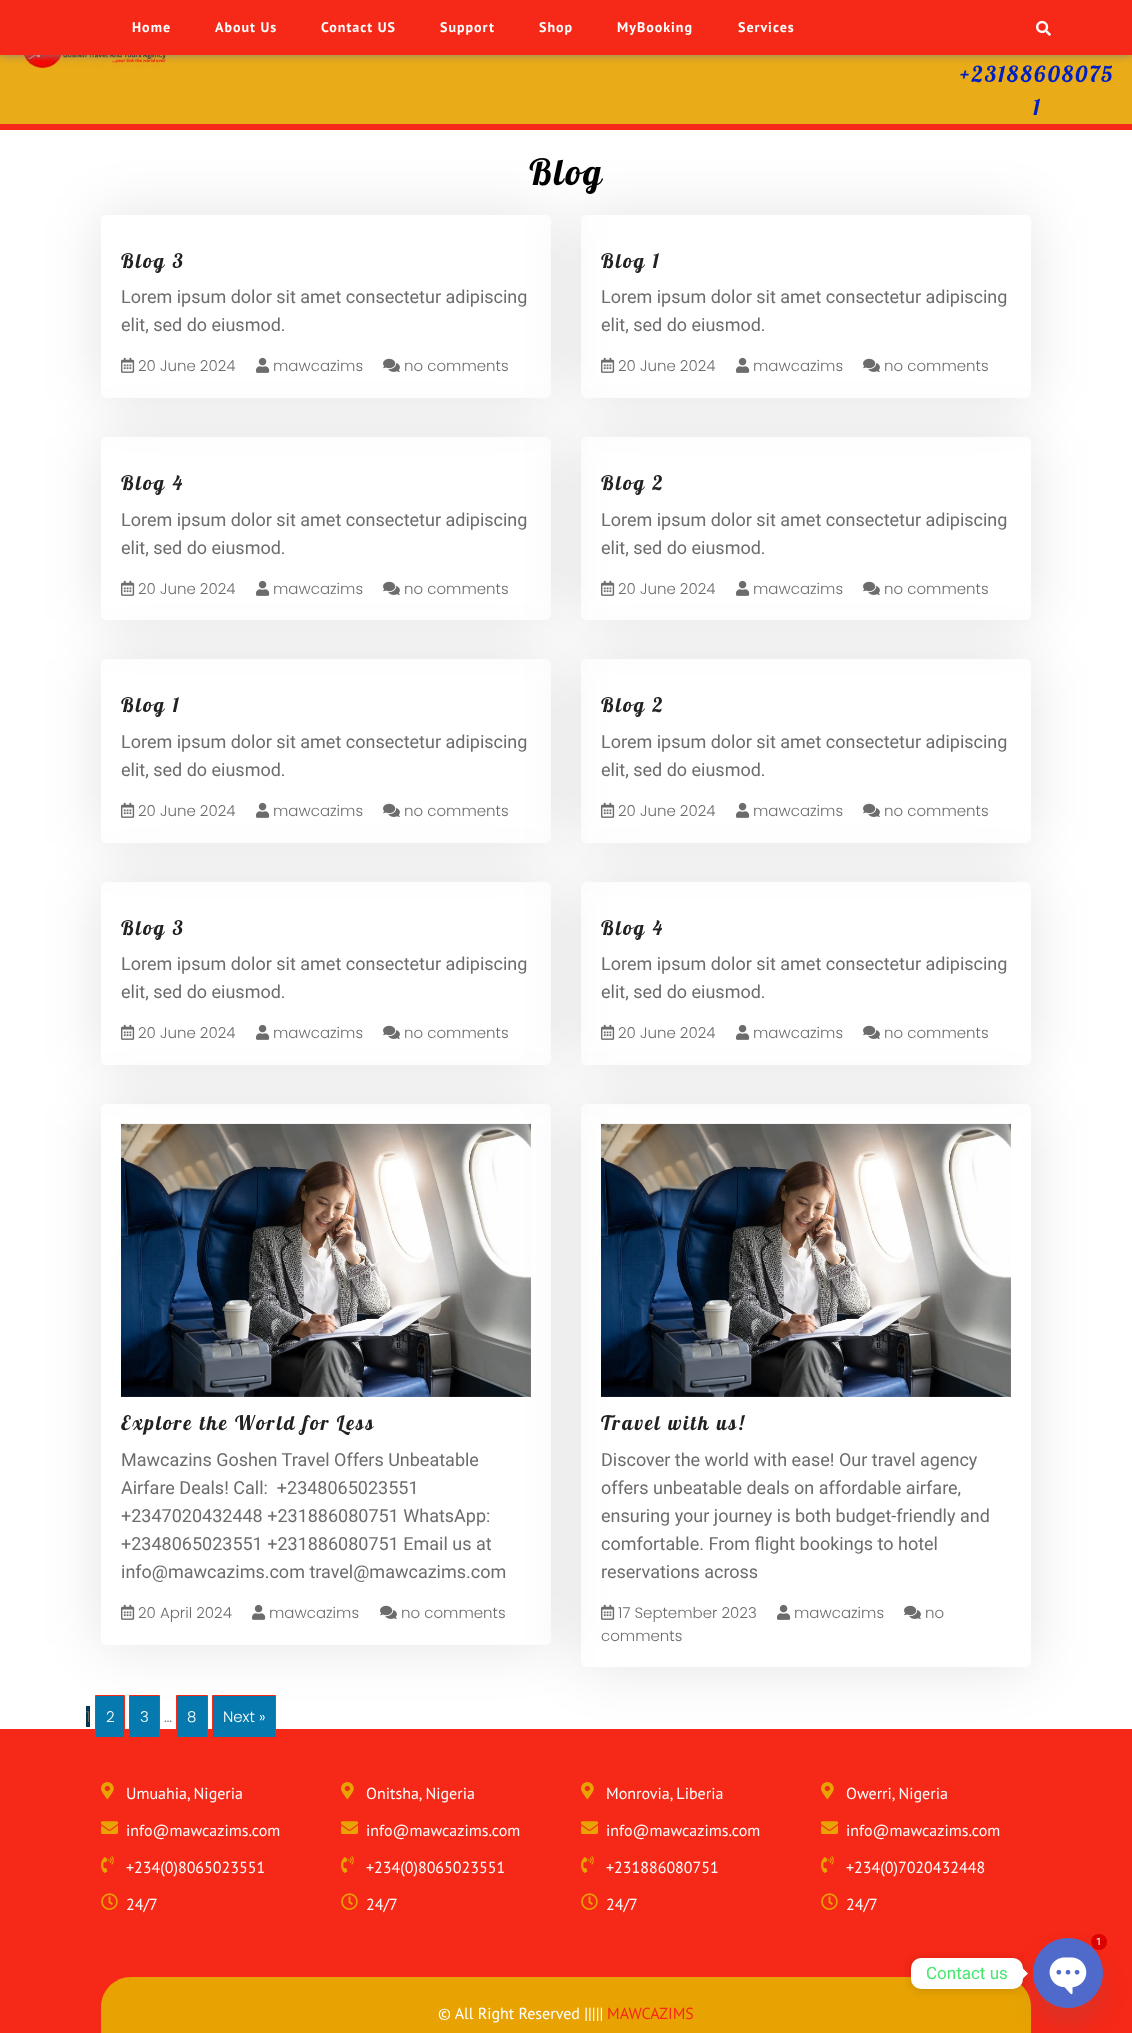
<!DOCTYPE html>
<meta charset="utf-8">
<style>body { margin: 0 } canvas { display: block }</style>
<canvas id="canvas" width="1132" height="2033"></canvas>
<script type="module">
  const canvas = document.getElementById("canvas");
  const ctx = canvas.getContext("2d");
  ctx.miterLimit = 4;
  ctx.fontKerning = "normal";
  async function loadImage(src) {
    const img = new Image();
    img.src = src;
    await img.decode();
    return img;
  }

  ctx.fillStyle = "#ffffff";
  ctx.fillRect(0, 0, 1132, 2033);
  ctx.fillStyle = "#e9ab17";
  ctx.fillRect(0, 55, 1132, 69);
  ctx.fillStyle = "#f62817";
  ctx.fillRect(0, 124, 1132, 6);
  ctx.drawImage(await loadImage("img2.png"), 23, 55, 143, 14);
  ctx.fillStyle = "#808080";
  ctx.filter = "blur(4px)";
  ctx.beginPath();
  ctx.rect(0, 0, 1132, 55);
  ctx.fill();
  ctx.filter = "none";
  ctx.fillStyle = "#f62817";
  ctx.fillRect(0, 0, 1132, 55);
  ctx.letterSpacing = "1px";
  ctx.font = "bold 14px PT Sans";
  ctx.fillStyle = "#ffffff";
  ctx.fillText("Home", 132, 32);
  ctx.fillText("About Us", 215, 32);
  ctx.fillText("Contact US", 321, 32);
  ctx.fillText("Support", 440, 32);
  ctx.fillText("Shop", 539, 32);
  ctx.fillText("MyBooking", 617, 32);
  ctx.fillText("Services", 738, 32);
  ctx.drawImage(await loadImage("img1.png"), 1036, 20, 15, 16);
  ctx.letterSpacing = "2px";
  ctx.font = "22px Lobster";
  ctx.fillStyle = "#0020c2";
  ctx.fillText("+23188608075", 960, 82);
  ctx.fillText("1", 1033, 115);
  ctx.font = "36px Lobster";
  ctx.fillStyle = "#000000";
  ctx.fillText("Blog", 529, 185);
  ctx.save();
  ctx.beginPath();
  ctx.moveTo(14, 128);
  ctx.lineTo(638, 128);
  ctx.lineTo(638, 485);
  ctx.lineTo(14, 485);
  ctx.closePath();
  ctx.moveTo(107, 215);
  ctx.lineTo(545, 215);
  ctx.bezierCurveTo(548.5, 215, 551, 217.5, 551, 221);
  ctx.lineTo(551, 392);
  ctx.bezierCurveTo(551, 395.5, 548.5, 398, 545, 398);
  ctx.lineTo(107, 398);
  ctx.bezierCurveTo(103.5, 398, 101, 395.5, 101, 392);
  ctx.lineTo(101, 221);
  ctx.bezierCurveTo(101, 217.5, 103.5, 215, 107, 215);
  ctx.closePath();
  ctx.clip("evenodd");
  ctx.fillStyle = "rgba(0, 0, 0, 0.11)";
  ctx.filter = "blur(28.5px)";
  ctx.beginPath();
  ctx.roundRect(101, 215, 450, 183, 6);
  ctx.fill();
  ctx.filter = "none";
  ctx.restore();
  ctx.font = "20px Lobster";
  ctx.fillStyle = "#222222";
  ctx.fillText("Blog 3", 121, 268);
  ctx.letterSpacing = "0px";
  ctx.font = "18px Roboto";
  ctx.fillStyle = "#6c6c6c";
  ctx.fillText("Lorem ipsum dolor sit amet consectetur adipiscing", 121, 303);
  ctx.fillText("elit, sed do eiusmod.", 121, 331);
  ctx.drawImage(await loadImage("img3.png"), 121, 357, 14, 16);
  ctx.font = "300 15px Poppins";
  ctx.fillText("20 June 2024", 138, 371);
  ctx.drawImage(await loadImage("img4.png"), 256, 357, 14, 16);
  ctx.fillText("mawcazims", 273, 371);
  ctx.drawImage(await loadImage("img5.png"), 383, 358, 17, 14);
  ctx.fillText("no comments", 404, 371);
  ctx.save();
  ctx.beginPath();
  ctx.moveTo(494, 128);
  ctx.lineTo(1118, 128);
  ctx.lineTo(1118, 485);
  ctx.lineTo(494, 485);
  ctx.closePath();
  ctx.moveTo(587, 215);
  ctx.lineTo(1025, 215);
  ctx.bezierCurveTo(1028.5, 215, 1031, 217.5, 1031, 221);
  ctx.lineTo(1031, 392);
  ctx.bezierCurveTo(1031, 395.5, 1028.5, 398, 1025, 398);
  ctx.lineTo(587, 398);
  ctx.bezierCurveTo(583.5, 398, 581, 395.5, 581, 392);
  ctx.lineTo(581, 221);
  ctx.bezierCurveTo(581, 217.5, 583.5, 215, 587, 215);
  ctx.closePath();
  ctx.clip("evenodd");
  ctx.fillStyle = "rgba(0, 0, 0, 0.11)";
  ctx.filter = "blur(28.5px)";
  ctx.beginPath();
  ctx.roundRect(581, 215, 450, 183, 6);
  ctx.fill();
  ctx.filter = "none";
  ctx.restore();
  ctx.letterSpacing = "2px";
  ctx.font = "20px Lobster";
  ctx.fillStyle = "#222222";
  ctx.fillText("Blog 1", 601, 268);
  ctx.letterSpacing = "0px";
  ctx.font = "18px Roboto";
  ctx.fillStyle = "#6c6c6c";
  ctx.fillText("Lorem ipsum dolor sit amet consectetur adipiscing", 601, 303);
  ctx.fillText("elit, sed do eiusmod.", 601, 331);
  ctx.drawImage(await loadImage("img6.png"), 601, 357, 14, 16);
  ctx.font = "300 15px Poppins";
  ctx.fillText("20 June 2024", 618, 371);
  ctx.drawImage(await loadImage("img4.png"), 736, 357, 14, 16);
  ctx.fillText("mawcazims", 753, 371);
  ctx.drawImage(await loadImage("img5.png"), 863, 358, 17, 14);
  ctx.fillText("no comments", 884, 371);
  ctx.save();
  ctx.beginPath();
  ctx.moveTo(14, 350);
  ctx.lineTo(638, 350);
  ctx.lineTo(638, 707);
  ctx.lineTo(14, 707);
  ctx.closePath();
  ctx.moveTo(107, 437);
  ctx.lineTo(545, 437);
  ctx.bezierCurveTo(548.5, 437, 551, 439.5, 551, 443);
  ctx.lineTo(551, 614);
  ctx.bezierCurveTo(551, 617.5, 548.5, 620, 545, 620);
  ctx.lineTo(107, 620);
  ctx.bezierCurveTo(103.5, 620, 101, 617.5, 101, 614);
  ctx.lineTo(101, 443);
  ctx.bezierCurveTo(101, 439.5, 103.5, 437, 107, 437);
  ctx.closePath();
  ctx.clip("evenodd");
  ctx.fillStyle = "rgba(0, 0, 0, 0.11)";
  ctx.filter = "blur(28.5px)";
  ctx.beginPath();
  ctx.roundRect(101, 437, 450, 183, 6);
  ctx.fill();
  ctx.filter = "none";
  ctx.restore();
  ctx.letterSpacing = "2px";
  ctx.font = "20px Lobster";
  ctx.fillStyle = "#222222";
  ctx.fillText("Blog 4", 121, 490);
  ctx.letterSpacing = "0px";
  ctx.font = "18px Roboto";
  ctx.fillStyle = "#6c6c6c";
  ctx.fillText("Lorem ipsum dolor sit amet consectetur adipiscing", 121, 526);
  ctx.fillText("elit, sed do eiusmod.", 121, 554);
  ctx.drawImage(await loadImage("img3.png"), 121, 580, 14, 16);
  ctx.font = "300 15px Poppins";
  ctx.fillText("20 June 2024", 138, 594);
  ctx.drawImage(await loadImage("img4.png"), 256, 580, 14, 16);
  ctx.fillText("mawcazims", 273, 594);
  ctx.drawImage(await loadImage("img5.png"), 383, 581, 17, 14);
  ctx.fillText("no comments", 404, 594);
  ctx.save();
  ctx.beginPath();
  ctx.moveTo(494, 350);
  ctx.lineTo(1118, 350);
  ctx.lineTo(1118, 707);
  ctx.lineTo(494, 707);
  ctx.closePath();
  ctx.moveTo(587, 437);
  ctx.lineTo(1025, 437);
  ctx.bezierCurveTo(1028.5, 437, 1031, 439.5, 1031, 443);
  ctx.lineTo(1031, 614);
  ctx.bezierCurveTo(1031, 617.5, 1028.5, 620, 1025, 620);
  ctx.lineTo(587, 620);
  ctx.bezierCurveTo(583.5, 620, 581, 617.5, 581, 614);
  ctx.lineTo(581, 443);
  ctx.bezierCurveTo(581, 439.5, 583.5, 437, 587, 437);
  ctx.closePath();
  ctx.clip("evenodd");
  ctx.fillStyle = "rgba(0, 0, 0, 0.11)";
  ctx.filter = "blur(28.5px)";
  ctx.beginPath();
  ctx.roundRect(581, 437, 450, 183, 6);
  ctx.fill();
  ctx.filter = "none";
  ctx.restore();
  ctx.letterSpacing = "2px";
  ctx.font = "20px Lobster";
  ctx.fillStyle = "#222222";
  ctx.fillText("Blog 2", 601, 490);
  ctx.letterSpacing = "0px";
  ctx.font = "18px Roboto";
  ctx.fillStyle = "#6c6c6c";
  ctx.fillText("Lorem ipsum dolor sit amet consectetur adipiscing", 601, 526);
  ctx.fillText("elit, sed do eiusmod.", 601, 554);
  ctx.drawImage(await loadImage("img7.png"), 601, 580, 14, 16);
  ctx.font = "300 15px Poppins";
  ctx.fillText("20 June 2024", 618, 594);
  ctx.drawImage(await loadImage("img4.png"), 736, 580, 14, 16);
  ctx.fillText("mawcazims", 753, 594);
  ctx.drawImage(await loadImage("img5.png"), 863, 581, 17, 14);
  ctx.fillText("no comments", 884, 594);
  ctx.save();
  ctx.beginPath();
  ctx.moveTo(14, 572);
  ctx.lineTo(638, 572);
  ctx.lineTo(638, 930);
  ctx.lineTo(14, 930);
  ctx.closePath();
  ctx.moveTo(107, 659);
  ctx.lineTo(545, 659);
  ctx.bezierCurveTo(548.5, 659, 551, 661.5, 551, 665);
  ctx.lineTo(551, 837);
  ctx.bezierCurveTo(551, 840.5, 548.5, 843, 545, 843);
  ctx.lineTo(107, 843);
  ctx.bezierCurveTo(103.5, 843, 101, 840.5, 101, 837);
  ctx.lineTo(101, 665);
  ctx.bezierCurveTo(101, 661.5, 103.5, 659, 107, 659);
  ctx.closePath();
  ctx.clip("evenodd");
  ctx.fillStyle = "rgba(0, 0, 0, 0.11)";
  ctx.filter = "blur(28.5px)";
  ctx.beginPath();
  ctx.roundRect(101, 659, 450, 184, 6);
  ctx.fill();
  ctx.filter = "none";
  ctx.restore();
  ctx.letterSpacing = "2px";
  ctx.font = "20px Lobster";
  ctx.fillStyle = "#222222";
  ctx.fillText("Blog 1", 121, 712);
  ctx.letterSpacing = "0px";
  ctx.font = "18px Roboto";
  ctx.fillStyle = "#6c6c6c";
  ctx.fillText("Lorem ipsum dolor sit amet consectetur adipiscing", 121, 748);
  ctx.fillText("elit, sed do eiusmod.", 121, 776);
  ctx.drawImage(await loadImage("img3.png"), 121, 802, 14, 16);
  ctx.font = "300 15px Poppins";
  ctx.fillText("20 June 2024", 138, 816);
  ctx.drawImage(await loadImage("img4.png"), 256, 802, 14, 16);
  ctx.fillText("mawcazims", 273, 816);
  ctx.drawImage(await loadImage("img5.png"), 383, 803, 17, 14);
  ctx.fillText("no comments", 404, 816);
  ctx.save();
  ctx.beginPath();
  ctx.moveTo(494, 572);
  ctx.lineTo(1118, 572);
  ctx.lineTo(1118, 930);
  ctx.lineTo(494, 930);
  ctx.closePath();
  ctx.moveTo(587, 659);
  ctx.lineTo(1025, 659);
  ctx.bezierCurveTo(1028.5, 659, 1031, 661.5, 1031, 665);
  ctx.lineTo(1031, 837);
  ctx.bezierCurveTo(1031, 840.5, 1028.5, 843, 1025, 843);
  ctx.lineTo(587, 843);
  ctx.bezierCurveTo(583.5, 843, 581, 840.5, 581, 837);
  ctx.lineTo(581, 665);
  ctx.bezierCurveTo(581, 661.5, 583.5, 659, 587, 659);
  ctx.closePath();
  ctx.clip("evenodd");
  ctx.fillStyle = "rgba(0, 0, 0, 0.11)";
  ctx.filter = "blur(28.5px)";
  ctx.beginPath();
  ctx.roundRect(581, 659, 450, 184, 6);
  ctx.fill();
  ctx.filter = "none";
  ctx.restore();
  ctx.letterSpacing = "2px";
  ctx.font = "20px Lobster";
  ctx.fillStyle = "#222222";
  ctx.fillText("Blog 2", 601, 712);
  ctx.letterSpacing = "0px";
  ctx.font = "18px Roboto";
  ctx.fillStyle = "#6c6c6c";
  ctx.fillText("Lorem ipsum dolor sit amet consectetur adipiscing", 601, 748);
  ctx.fillText("elit, sed do eiusmod.", 601, 776);
  ctx.drawImage(await loadImage("img6.png"), 601, 802, 14, 16);
  ctx.font = "300 15px Poppins";
  ctx.fillText("20 June 2024", 618, 816);
  ctx.drawImage(await loadImage("img4.png"), 736, 802, 14, 16);
  ctx.fillText("mawcazims", 753, 816);
  ctx.drawImage(await loadImage("img5.png"), 863, 803, 17, 14);
  ctx.fillText("no comments", 884, 816);
  ctx.save();
  ctx.beginPath();
  ctx.moveTo(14, 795);
  ctx.lineTo(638, 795);
  ctx.lineTo(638, 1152);
  ctx.lineTo(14, 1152);
  ctx.closePath();
  ctx.moveTo(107, 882);
  ctx.lineTo(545, 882);
  ctx.bezierCurveTo(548.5, 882, 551, 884.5, 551, 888);
  ctx.lineTo(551, 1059);
  ctx.bezierCurveTo(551, 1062.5, 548.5, 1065, 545, 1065);
  ctx.lineTo(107, 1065);
  ctx.bezierCurveTo(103.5, 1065, 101, 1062.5, 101, 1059);
  ctx.lineTo(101, 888);
  ctx.bezierCurveTo(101, 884.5, 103.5, 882, 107, 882);
  ctx.closePath();
  ctx.clip("evenodd");
  ctx.fillStyle = "rgba(0, 0, 0, 0.11)";
  ctx.filter = "blur(28.5px)";
  ctx.beginPath();
  ctx.roundRect(101, 882, 450, 183, 6);
  ctx.fill();
  ctx.filter = "none";
  ctx.restore();
  ctx.letterSpacing = "2px";
  ctx.font = "20px Lobster";
  ctx.fillStyle = "#222222";
  ctx.fillText("Blog 3", 121, 935);
  ctx.letterSpacing = "0px";
  ctx.font = "18px Roboto";
  ctx.fillStyle = "#6c6c6c";
  ctx.fillText("Lorem ipsum dolor sit amet consectetur adipiscing", 121, 970);
  ctx.fillText("elit, sed do eiusmod.", 121, 998);
  ctx.drawImage(await loadImage("img3.png"), 121, 1024, 14, 16);
  ctx.font = "300 15px Poppins";
  ctx.fillText("20 June 2024", 138, 1038);
  ctx.drawImage(await loadImage("img4.png"), 256, 1024, 14, 16);
  ctx.fillText("mawcazims", 273, 1038);
  ctx.drawImage(await loadImage("img5.png"), 383, 1025, 17, 14);
  ctx.fillText("no comments", 404, 1038);
  ctx.save();
  ctx.beginPath();
  ctx.moveTo(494, 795);
  ctx.lineTo(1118, 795);
  ctx.lineTo(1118, 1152);
  ctx.lineTo(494, 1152);
  ctx.closePath();
  ctx.moveTo(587, 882);
  ctx.lineTo(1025, 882);
  ctx.bezierCurveTo(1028.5, 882, 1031, 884.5, 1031, 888);
  ctx.lineTo(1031, 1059);
  ctx.bezierCurveTo(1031, 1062.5, 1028.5, 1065, 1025, 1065);
  ctx.lineTo(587, 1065);
  ctx.bezierCurveTo(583.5, 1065, 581, 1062.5, 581, 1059);
  ctx.lineTo(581, 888);
  ctx.bezierCurveTo(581, 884.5, 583.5, 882, 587, 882);
  ctx.closePath();
  ctx.clip("evenodd");
  ctx.fillStyle = "rgba(0, 0, 0, 0.11)";
  ctx.filter = "blur(28.5px)";
  ctx.beginPath();
  ctx.roundRect(581, 882, 450, 183, 6);
  ctx.fill();
  ctx.filter = "none";
  ctx.restore();
  ctx.letterSpacing = "2px";
  ctx.font = "20px Lobster";
  ctx.fillStyle = "#222222";
  ctx.fillText("Blog 4", 601, 935);
  ctx.letterSpacing = "0px";
  ctx.font = "18px Roboto";
  ctx.fillStyle = "#6c6c6c";
  ctx.fillText("Lorem ipsum dolor sit amet consectetur adipiscing", 601, 970);
  ctx.fillText("elit, sed do eiusmod.", 601, 998);
  ctx.drawImage(await loadImage("img6.png"), 601, 1024, 14, 16);
  ctx.font = "300 15px Poppins";
  ctx.fillText("20 June 2024", 618, 1038);
  ctx.drawImage(await loadImage("img4.png"), 736, 1024, 14, 16);
  ctx.fillText("mawcazims", 753, 1038);
  ctx.drawImage(await loadImage("img5.png"), 863, 1025, 17, 14);
  ctx.fillText("no comments", 884, 1038);
  ctx.fillStyle = "#04364d";
  ctx.fillRect(86, 1706, 4, 21);
  ctx.fillStyle = "#f62817";
  ctx.fillRect(0, 1729, 1132, 304);
  ctx.fillStyle = "#0679ae";
  ctx.beginPath();
  ctx.rect(95.5, 1695.5, 29, 42);
  ctx.fill();
  ctx.strokeStyle = "#f62817";
  ctx.stroke();
  ctx.beginPath();
  ctx.rect(129.5, 1695.5, 30, 42);
  ctx.fill();
  ctx.stroke();
  ctx.beginPath();
  ctx.rect(176.5, 1695.5, 31, 42);
  ctx.fill();
  ctx.stroke();
  ctx.beginPath();
  ctx.rect(212.5, 1695.5, 63, 42);
  ctx.fill();
  ctx.stroke();
  ctx.save();
  ctx.beginPath();
  ctx.moveTo(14, 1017);
  ctx.lineTo(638, 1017);
  ctx.lineTo(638, 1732);
  ctx.lineTo(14, 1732);
  ctx.closePath();
  ctx.moveTo(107, 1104);
  ctx.lineTo(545, 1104);
  ctx.bezierCurveTo(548.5, 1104, 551, 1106.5, 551, 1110);
  ctx.lineTo(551, 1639);
  ctx.bezierCurveTo(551, 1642.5, 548.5, 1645, 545, 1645);
  ctx.lineTo(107, 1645);
  ctx.bezierCurveTo(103.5, 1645, 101, 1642.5, 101, 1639);
  ctx.lineTo(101, 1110);
  ctx.bezierCurveTo(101, 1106.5, 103.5, 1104, 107, 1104);
  ctx.closePath();
  ctx.clip("evenodd");
  ctx.fillStyle = "rgba(0, 0, 0, 0.11)";
  ctx.filter = "blur(28.5px)";
  ctx.beginPath();
  ctx.roundRect(101, 1104, 450, 541, 6);
  ctx.fill();
  ctx.filter = "none";
  ctx.restore();
  ctx.drawImage(await loadImage("img8.png"), 121, 1123, 410, 274);
  ctx.letterSpacing = "2px";
  ctx.font = "20px Lobster";
  ctx.fillStyle = "#222222";
  ctx.fillText("Explore the World for Less", 121, 1430);
  ctx.letterSpacing = "0px";
  ctx.font = "18px Roboto";
  ctx.fillStyle = "#6c6c6c";
  ctx.fillText("Mawcazins Goshen Travel Offers Unbeatable", 121, 1466);
  ctx.fillText("Airfare Deals! Call:  +2348065023551", 121, 1494);
  ctx.fillText("+2347020432448 +231886080751 WhatsApp:", 121, 1522);
  ctx.fillText("+2348065023551 +231886080751 Email us at", 121, 1550);
  ctx.fillText("info@mawcazims.com travel@mawcazims.com", 121, 1578);
  ctx.drawImage(await loadImage("img3.png"), 121, 1604, 14, 16);
  ctx.font = "300 15px Poppins";
  ctx.fillText("20 April 2024", 138, 1618);
  ctx.drawImage(await loadImage("img4.png"), 252, 1604, 14, 16);
  ctx.fillText("mawcazims", 269, 1618);
  ctx.drawImage(await loadImage("img5.png"), 380, 1605, 17, 14);
  ctx.fillText("no comments", 401, 1618);
  ctx.save();
  ctx.beginPath();
  ctx.moveTo(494, 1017);
  ctx.lineTo(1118, 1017);
  ctx.lineTo(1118, 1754);
  ctx.lineTo(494, 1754);
  ctx.closePath();
  ctx.moveTo(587, 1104);
  ctx.lineTo(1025, 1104);
  ctx.bezierCurveTo(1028.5, 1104, 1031, 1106.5, 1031, 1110);
  ctx.lineTo(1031, 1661);
  ctx.bezierCurveTo(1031, 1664.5, 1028.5, 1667, 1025, 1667);
  ctx.lineTo(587, 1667);
  ctx.bezierCurveTo(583.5, 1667, 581, 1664.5, 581, 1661);
  ctx.lineTo(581, 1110);
  ctx.bezierCurveTo(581, 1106.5, 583.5, 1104, 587, 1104);
  ctx.closePath();
  ctx.clip("evenodd");
  ctx.fillStyle = "rgba(0, 0, 0, 0.11)";
  ctx.filter = "blur(28.5px)";
  ctx.beginPath();
  ctx.roundRect(581, 1104, 450, 563, 6);
  ctx.fill();
  ctx.filter = "none";
  ctx.restore();
  ctx.drawImage(await loadImage("img9.png"), 601, 1123, 410, 274);
  ctx.letterSpacing = "2px";
  ctx.font = "20px Lobster";
  ctx.fillStyle = "#222222";
  ctx.fillText("Travel with us!", 601, 1430);
  ctx.letterSpacing = "0px";
  ctx.font = "18px Roboto";
  ctx.fillStyle = "#6c6c6c";
  ctx.fillText("Discover the world with ease! Our travel agency", 601, 1466);
  ctx.fillText("offers unbeatable deals on affordable airfare,", 601, 1494);
  ctx.fillText("ensuring your journey is both budget-friendly and", 601, 1522);
  ctx.fillText("comfortable. From flight bookings to hotel", 601, 1550);
  ctx.fillText("reservations across", 601, 1578);
  ctx.drawImage(await loadImage("img6.png"), 601, 1604, 14, 16);
  ctx.font = "300 15px Poppins";
  ctx.fillText("17 September 2023", 618, 1618);
  ctx.drawImage(await loadImage("img4.png"), 777, 1604, 14, 16);
  ctx.fillText("mawcazims", 794, 1618);
  ctx.drawImage(await loadImage("img5.png"), 904, 1605, 17, 14);
  ctx.fillText("no", 925, 1618);
  ctx.fillText("comments", 601, 1641);
  ctx.fillText("1", 86, 1722);
  ctx.fillStyle = "#ffffff";
  ctx.fillText("2", 106, 1722);
  ctx.fillText("3", 140, 1722);
  ctx.fillStyle = "#6c6c6c";
  ctx.fillText("…", 164, 1722);
  ctx.fillStyle = "#ffffff";
  ctx.fillText("8", 187, 1722);
  ctx.fillText("Next »", 223, 1722);
  ctx.drawImage(await loadImage("img10.png"), 101, 1782, 13, 18);
  ctx.font = "16px PT Sans";
  ctx.fillText("Umuahia, Nigeria", 126, 1799);
  ctx.drawImage(await loadImage("img11.png"), 101, 1821, 17, 13);
  ctx.fillText("info@mawcazims.com", 126, 1836);
  ctx.drawImage(await loadImage("img12.png"), 101, 1856, 13, 18);
  ctx.fillText("+234(0)8065023551", 126, 1873);
  ctx.drawImage(await loadImage("img13.png"), 101, 1893, 17, 17);
  ctx.fillText("24/7", 126, 1910);
  ctx.drawImage(await loadImage("img10.png"), 341, 1782, 13, 18);
  ctx.fillText("Onitsha, Nigeria", 366, 1799);
  ctx.drawImage(await loadImage("img11.png"), 341, 1821, 17, 13);
  ctx.fillText("info@mawcazims.com", 366, 1836);
  ctx.drawImage(await loadImage("img12.png"), 341, 1856, 13, 18);
  ctx.fillText("+234(0)8065023551", 366, 1873);
  ctx.drawImage(await loadImage("img13.png"), 341, 1893, 17, 17);
  ctx.fillText("24/7", 366, 1910);
  ctx.drawImage(await loadImage("img10.png"), 581, 1782, 13, 18);
  ctx.fillText("Monrovia, Liberia", 606, 1799);
  ctx.drawImage(await loadImage("img11.png"), 581, 1821, 17, 13);
  ctx.fillText("info@mawcazims.com", 606, 1836);
  ctx.drawImage(await loadImage("img12.png"), 581, 1856, 13, 18);
  ctx.fillText("+231886080751", 606, 1873);
  ctx.drawImage(await loadImage("img13.png"), 581, 1893, 17, 17);
  ctx.fillText("24/7", 606, 1910);
  ctx.drawImage(await loadImage("img10.png"), 821, 1782, 13, 18);
  ctx.fillText("Owerri, Nigeria", 846, 1799);
  ctx.drawImage(await loadImage("img11.png"), 821, 1821, 17, 13);
  ctx.fillText("info@mawcazims.com", 846, 1836);
  ctx.drawImage(await loadImage("img12.png"), 821, 1856, 13, 18);
  ctx.fillText("+234(0)7020432448", 846, 1873);
  ctx.drawImage(await loadImage("img13.png"), 821, 1893, 17, 17);
  ctx.fillText("24/7", 846, 1910);
  ctx.fillStyle = "#e8a302";
  ctx.beginPath();
  ctx.moveTo(131, 1977);
  ctx.lineTo(1001, 1977);
  ctx.bezierCurveTo(1017.5, 1977, 1031, 1990.5, 1031, 2007);
  ctx.lineTo(1031, 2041);
  ctx.lineTo(101, 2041);
  ctx.lineTo(101, 2007);
  ctx.bezierCurveTo(101, 1990.5, 114.5, 1977, 131, 1977);
  ctx.closePath();
  ctx.fill();
  ctx.fillStyle = "#ffffff";
  ctx.fillText("© All Right Reserved |||||", 438, 2019);
  ctx.fillStyle = "#f62817";
  ctx.fillText("MAWCAZIMS", 607, 2019);
  ctx.fillStyle = "rgba(0, 0, 0, 0.15)";
  ctx.filter = "blur(4px)";
  ctx.beginPath();
  ctx.roundRect(911, 1959, 112, 31, 10);
  ctx.fill();
  ctx.filter = "none";
  ctx.fillStyle = "#ffffff";
  ctx.beginPath();
  ctx.roundRect(911, 1958, 112, 31, 10);
  ctx.fill();
  ctx.beginPath();
  ctx.moveTo(1023, 1978.5);
  ctx.lineTo(1023, 1968.5);
  ctx.lineTo(1028, 1973.5);
  ctx.closePath();
  ctx.fill();
  ctx.fillStyle = "rgba(73, 104, 126, 0.16)";
  ctx.filter = "blur(12px)";
  ctx.beginPath();
  ctx.roundRect(1033, 1954, 70, 70, 35);
  ctx.fill();
  ctx.filter = "none";
  ctx.drawImage(await loadImage("img14.png"), 1033, 1938, 70, 70);
  ctx.fillStyle = "#dd0000";
  ctx.beginPath();
  ctx.arc(1099, 1942, 8, 0, Math.PI * 2);
  ctx.fill();
  ctx.font = "10px Roboto";
  ctx.fillStyle = "#ffffff";
  ctx.fillText("1", 1096, 1945);
  ctx.font = "17px Roboto";
  ctx.fillStyle = "#49e670";
  ctx.fillText("Contact us", 926, 1979);
</script>
